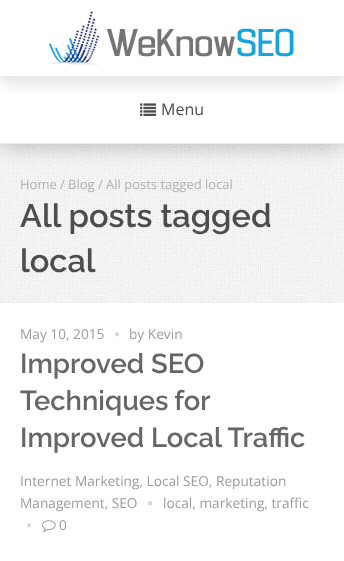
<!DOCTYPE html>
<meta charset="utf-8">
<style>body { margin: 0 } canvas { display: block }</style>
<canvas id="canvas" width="344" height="561"></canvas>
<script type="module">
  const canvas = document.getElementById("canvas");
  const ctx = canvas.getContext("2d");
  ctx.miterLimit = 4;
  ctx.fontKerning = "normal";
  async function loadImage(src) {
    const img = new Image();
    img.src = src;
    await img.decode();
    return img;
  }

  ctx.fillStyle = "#ffffff";
  ctx.fillRect(0, 0, 344, 561);
  ctx.drawImage(await loadImage("img2.png"), 140, 103, 16, 13);
  ctx.save();
  ctx.beginPath();
  ctx.rect(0, 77, 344, 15);
  ctx.clip();
  ctx.fillStyle = "rgba(50, 50, 50, 0.2)";
  ctx.filter = "blur(9px)";
  ctx.beginPath();
  ctx.rect(0, 3, 344, 77);
  ctx.fill();
  ctx.filter = "none";
  ctx.restore();
  ctx.fillStyle = "#ededed";
  ctx.fillRect(0, 76, 344, 1);
  ctx.drawImage(await loadImage("img1.png"), 49, 11, 245, 55);
  ctx.fillRect(0, 143, 344, 1);
  ctx.font = "16px Open Sans";
  ctx.fillStyle = "#4d4d4d";
  ctx.fillText("Menu", 161, 115);
  ctx.drawImage(await loadImage("img3.png"), 0, 144, 344, 159);
  ctx.save();
  ctx.beginPath();
  ctx.rect(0, 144, 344, 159);
  ctx.clip();
  ctx.fillStyle = "rgba(0, 0, 0, 0.25)";
  ctx.filter = "blur(10px)";
  ctx.beginPath();
  ctx.roundRect(0, 126, 344, 20, 10);
  ctx.fill();
  ctx.filter = "none";
  ctx.restore();
  ctx.font = "13px Open Sans";
  ctx.fillStyle = "#b0b0b0";
  ctx.fillText("Home", 20, 189);
  ctx.fillText("/", 60, 189);
  ctx.fillText("Blog / All posts tagged local", 68, 189);
  ctx.font = "600 32.5px Raleway";
  ctx.fillStyle = "#4d4d4d";
  ctx.fillText("All posts tagged", 20, 227);
  ctx.fillText("local", 20, 272);
  ctx.font = "13.7px Open Sans";
  ctx.fillStyle = "#9c9c9c";
  ctx.fillText("May 10, 2015", 20, 339);
  ctx.drawImage(await loadImage("img4.png"), 115, 332, 5, 5);
  ctx.fillText("by Kevin", 129, 339);
  ctx.font = "600 27.4px Raleway";
  ctx.fillStyle = "#666666";
  ctx.fillText("Improved SEO", 20, 373);
  ctx.wordSpacing = "-1px";
  ctx.fillText("Techniques for", 20, 410);
  ctx.wordSpacing = "0px";
  ctx.fillText("Improved Local Traffic", 20, 447);
  ctx.font = "13.7px Open Sans";
  ctx.fillStyle = "#9c9c9c";
  ctx.fillText("Internet Marketing, Local SEO, Reputation", 20, 486);
  ctx.fillText("Management, SEO", 20, 508);
  ctx.drawImage(await loadImage("img4.png"), 148, 501, 5, 5);
  ctx.fillText("local, marketing, traffic", 163, 508);
  ctx.drawImage(await loadImage("img4.png"), 27, 523, 5, 5);
  ctx.drawImage(await loadImage("img5.png"), 42, 520, 14, 12);
  ctx.fillText("0", 59, 530);
</script>
